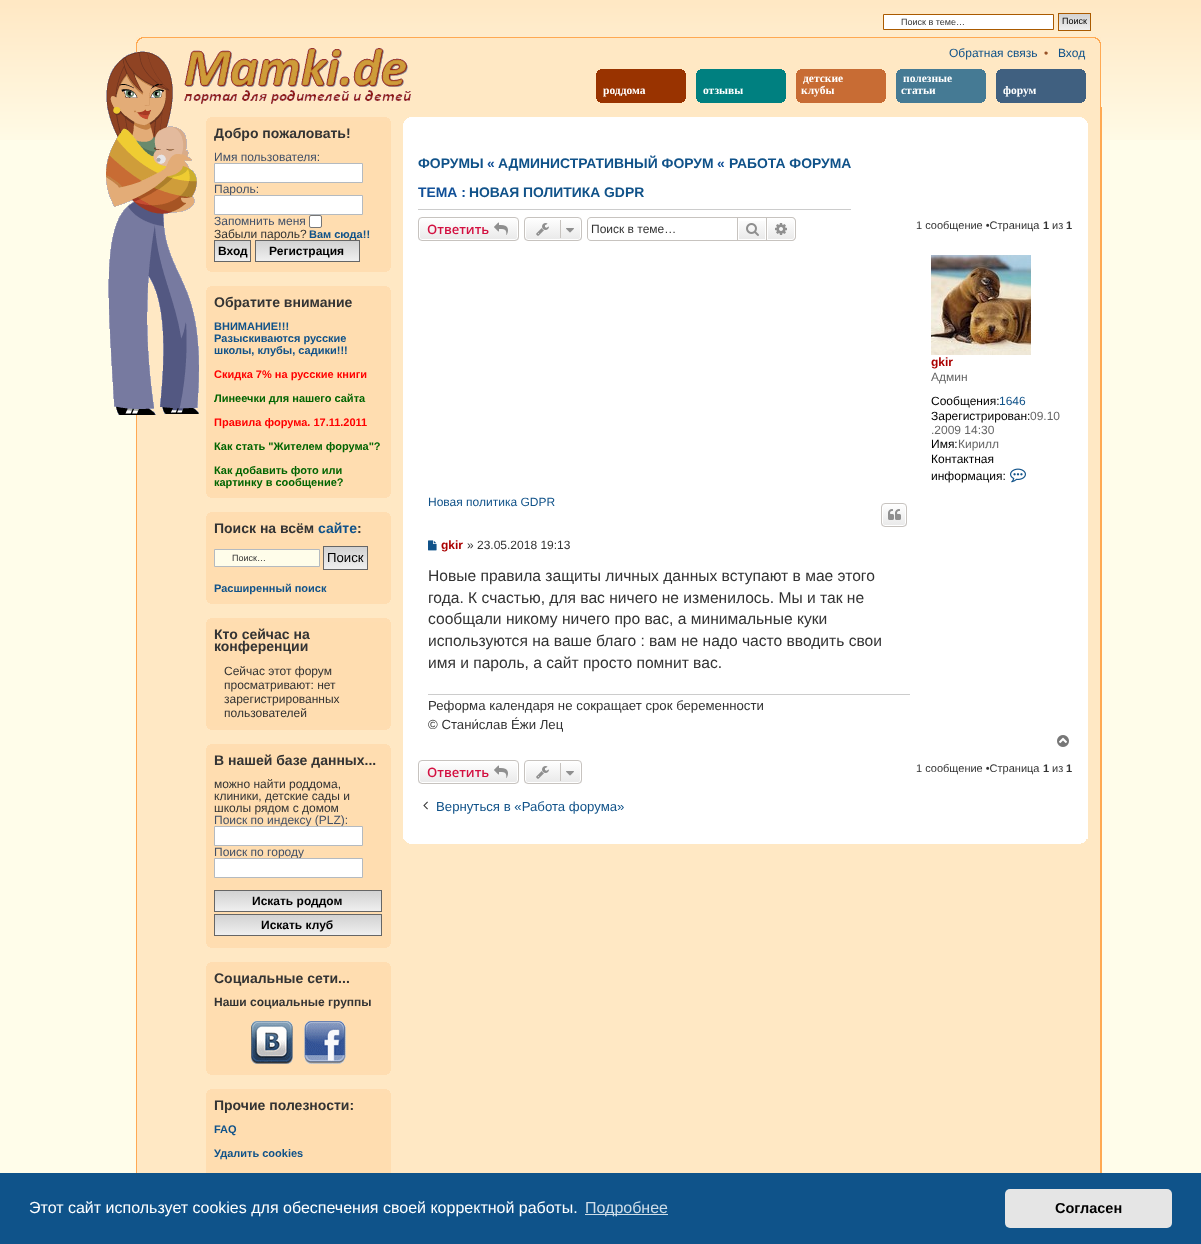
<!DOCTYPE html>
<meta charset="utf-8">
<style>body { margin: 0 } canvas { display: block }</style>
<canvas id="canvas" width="1201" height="1244"></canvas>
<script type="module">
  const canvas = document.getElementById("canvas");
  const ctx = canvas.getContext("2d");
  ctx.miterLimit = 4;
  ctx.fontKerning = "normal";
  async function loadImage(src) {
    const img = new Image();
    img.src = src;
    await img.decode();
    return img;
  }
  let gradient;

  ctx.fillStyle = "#fffdea";
  ctx.fillRect(0, 0, 1201, 1244);
  ctx.drawImage(await loadImage("img1.png"), 0, 0, 1201, 140);
  ctx.fillStyle = "#ffffff";
  ctx.beginPath();
  ctx.rect(883.5, 14.5, 170, 15);
  ctx.fill();
  ctx.strokeStyle = "#aa5a00";
  ctx.stroke();
  ctx.font = "9px Liberation Sans";
  ctx.fillStyle = "#333333";
  ctx.fillText("Поиск в теме…", 901, 25);
  gradient = ctx.createLinearGradient(1075, 14, 1075, 30);
  gradient.addColorStop(0, "#d2d2d2");
  gradient.addColorStop(1, "#efefef");
  ctx.fillStyle = gradient;
  ctx.fillRect(1059, 14, 31, 16);
  ctx.strokeRect(1058.5, 13.5, 32, 17);
  ctx.fillStyle = "#000000";
  ctx.fillText("Поиск", 1062, 24);
  ctx.drawImage(await loadImage("img2.png"), 136, 37, 965, 70);
  ctx.drawImage(await loadImage("img10.png"), 136, 107, 966, 1066);
  ctx.drawImage(await loadImage("img3.png"), 106, 51, 93, 364);
  ctx.drawImage(await loadImage("img4.png"), 184, 48, 227, 56);
  ctx.font = "12px Liberation Sans";
  ctx.fillStyle = "#105289";
  ctx.fillText("Обратная связь", 949, 57);
  ctx.fillStyle = "#985227";
  ctx.fillText("•", 1044, 57);
  ctx.fillStyle = "#105289";
  ctx.fillText("Вход", 1058, 57);
  ctx.drawImage(await loadImage("img5.png"), 596, 69, 90, 34);
  ctx.font = "bold 11.5px Liberation Serif";
  ctx.fillStyle = "#ffffff";
  ctx.fillText("роддома", 603, 94);
  ctx.drawImage(await loadImage("img6.png"), 696, 69, 90, 34);
  ctx.fillText("отзывы", 703, 94);
  ctx.drawImage(await loadImage("img7.png"), 796, 69, 90, 34);
  ctx.fillText("детские", 803, 82);
  ctx.fillText("клубы", 801, 94);
  ctx.drawImage(await loadImage("img8.png"), 896, 69, 90, 34);
  ctx.fillText("полезные", 903, 82);
  ctx.fillText("статьи", 901, 94);
  ctx.drawImage(await loadImage("img9.png"), 996, 69, 90, 34);
  ctx.fillText("форум", 1003, 94);
  ctx.fillStyle = "#ffddb0";
  ctx.fillRect(206, 121, 185, 147);
  ctx.drawImage(await loadImage("img11.png"), 206, 117, 185, 4);
  ctx.font = "bold 14px Liberation Sans";
  ctx.fillStyle = "#333333";
  ctx.fillText("Добро пожаловать!", 214, 138);
  ctx.font = "12px Liberation Sans";
  ctx.fillStyle = "#425067";
  ctx.fillText("Имя пользователя:", 214, 161);
  ctx.fillStyle = "#ffffff";
  ctx.beginPath();
  ctx.rect(214.5, 163.5, 148, 19);
  ctx.fill();
  ctx.strokeStyle = "#b4bac0";
  ctx.stroke();
  ctx.fillStyle = "#425067";
  ctx.fillText("Пароль:", 214, 193);
  ctx.fillStyle = "#ffffff";
  ctx.beginPath();
  ctx.rect(214.5, 195.5, 148, 19);
  ctx.fill();
  ctx.stroke();
  ctx.fillStyle = "#425067";
  ctx.fillText("Запомнить меня", 214, 225);
  ctx.fillStyle = "#ffffff";
  ctx.beginPath();
  ctx.roundRect(309.5, 215.5, 12, 12, 1.5);
  ctx.fill();
  ctx.strokeStyle = "#767676";
  ctx.stroke();
  ctx.fillStyle = "#333333";
  ctx.fillText("Забыли пароль?", 214, 238);
  ctx.font = "bold 11px Liberation Sans";
  ctx.fillStyle = "#105289";
  ctx.fillText("Вам сюда!!", 309, 238);
  gradient = ctx.createLinearGradient(233, 241, 233, 261);
  gradient.addColorStop(0, "#d2d2d2");
  gradient.addColorStop(1, "#efefef");
  ctx.fillStyle = gradient;
  ctx.fillRect(215, 241, 35, 20);
  ctx.strokeStyle = "#666666";
  ctx.strokeRect(214.5, 240.5, 36, 21);
  ctx.font = "bold 12px Liberation Sans";
  ctx.fillStyle = "#000000";
  ctx.fillText("Вход", 218, 255);
  gradient = ctx.createLinearGradient(308, 241, 308, 261);
  gradient.addColorStop(0, "#d2d2d2");
  gradient.addColorStop(1, "#efefef");
  ctx.fillStyle = gradient;
  ctx.fillRect(256, 241, 103, 20);
  ctx.strokeRect(255.5, 240.5, 104, 21);
  ctx.fillStyle = "#000000";
  ctx.fillText("Регистрация", 269, 255);
  ctx.drawImage(await loadImage("img12.png"), 206, 268, 185, 4);
  ctx.fillStyle = "#ffddb0";
  ctx.fillRect(206, 290, 185, 204);
  ctx.drawImage(await loadImage("img11.png"), 206, 286, 185, 4);
  ctx.font = "bold 14px Liberation Sans";
  ctx.fillStyle = "#333333";
  ctx.fillText("Обратите внимание", 214, 307);
  ctx.font = "bold 11px Liberation Sans";
  ctx.fillStyle = "#105289";
  ctx.fillText("ВНИМАНИЕ!!!", 214, 330);
  ctx.fillText("Разыскиваются русские", 214, 342);
  ctx.fillText("школы, клубы, садики!!!", 214, 354);
  ctx.fillStyle = "#ff0000";
  ctx.fillText("Cкидка 7% на русские книги", 214, 378);
  ctx.fillStyle = "#006400";
  ctx.fillText("Линеечки для нашего сайта", 214, 402);
  ctx.fillStyle = "#ff0000";
  ctx.fillText("Правила форума. 17.11.2011", 214, 426);
  ctx.fillStyle = "#006400";
  ctx.fillText("Как стать \"Жителем форума\"?", 214, 450);
  ctx.fillText("Как добавить фото или", 214, 474);
  ctx.fillText("картинку в сообщение?", 214, 486);
  ctx.drawImage(await loadImage("img12.png"), 206, 494, 185, 4);
  ctx.fillStyle = "#ffddb0";
  ctx.fillRect(206, 516, 185, 84);
  ctx.drawImage(await loadImage("img11.png"), 206, 512, 185, 4);
  ctx.font = "bold 14px Liberation Sans";
  ctx.fillStyle = "#333333";
  ctx.fillText("Поиск на всём", 214, 533);
  ctx.fillStyle = "#105289";
  ctx.fillText("сайте", 318, 533);
  ctx.fillStyle = "#333333";
  ctx.fillText(":", 357, 533);
  ctx.fillStyle = "#fffdea";
  ctx.beginPath();
  ctx.rect(214.5, 549.5, 105, 17);
  ctx.fill();
  ctx.strokeStyle = "#b4bac0";
  ctx.stroke();
  ctx.font = "9px Liberation Sans";
  ctx.fillStyle = "#333333";
  ctx.fillText("Поиск…", 232, 561);
  gradient = ctx.createLinearGradient(346, 547, 346, 569);
  gradient.addColorStop(0, "#d2d2d2");
  gradient.addColorStop(1, "#efefef");
  ctx.fillStyle = gradient;
  ctx.fillRect(324, 547, 43, 22);
  ctx.strokeStyle = "#666666";
  ctx.strokeRect(323.5, 546.5, 44, 23);
  ctx.font = "13.2px Liberation Sans";
  ctx.fillStyle = "#000000";
  ctx.fillText("Поиск", 327, 562);
  ctx.font = "bold 11px Liberation Sans";
  ctx.fillStyle = "#105289";
  ctx.fillText("Расширенный поиск", 214, 592);
  ctx.drawImage(await loadImage("img12.png"), 206, 600, 185, 4);
  ctx.fillStyle = "#ffddb0";
  ctx.fillRect(206, 622, 185, 104);
  ctx.drawImage(await loadImage("img11.png"), 206, 618, 185, 4);
  ctx.font = "bold 14px Liberation Sans";
  ctx.fillStyle = "#333333";
  ctx.fillText("Кто сейчас на", 214, 639);
  ctx.fillText("конференции", 214, 651);
  ctx.font = "12px Liberation Sans";
  ctx.fillText("Сейчас этот форум", 224, 675);
  ctx.fillText("просматривают: нет", 224, 689);
  ctx.fillText("зарегистрированных", 224, 703);
  ctx.fillText("пользователей", 224, 717);
  ctx.drawImage(await loadImage("img12.png"), 206, 726, 185, 4);
  ctx.fillStyle = "#ffddb0";
  ctx.fillRect(206, 748, 185, 196);
  ctx.drawImage(await loadImage("img11.png"), 206, 744, 185, 4);
  ctx.font = "bold 14px Liberation Sans";
  ctx.fillStyle = "#333333";
  ctx.fillText("В нашей базе данных...", 214, 765);
  ctx.font = "12px Liberation Sans";
  ctx.fillText("можно найти роддома,", 214, 788);
  ctx.fillText("клиники, детские сады и", 214, 800);
  ctx.fillText("школы рядом с домом", 214, 812);
  ctx.fillStyle = "#425067";
  ctx.fillText("Поиск по индексу (PLZ):", 214, 824);
  ctx.fillStyle = "#ffffff";
  ctx.beginPath();
  ctx.rect(214.5, 826.5, 148, 19);
  ctx.fill();
  ctx.strokeStyle = "#b4bac0";
  ctx.stroke();
  ctx.fillStyle = "#425067";
  ctx.fillText("Поиск по городу", 214, 856);
  ctx.fillStyle = "#ffffff";
  ctx.beginPath();
  ctx.rect(214.5, 858.5, 148, 19);
  ctx.fill();
  ctx.stroke();
  gradient = ctx.createLinearGradient(298, 891, 298, 911);
  gradient.addColorStop(0, "#d2d2d2");
  gradient.addColorStop(1, "#efefef");
  ctx.fillStyle = gradient;
  ctx.fillRect(215, 891, 166, 20);
  ctx.strokeStyle = "#666666";
  ctx.strokeRect(214.5, 890.5, 167, 21);
  ctx.font = "bold 12px Liberation Sans";
  ctx.fillStyle = "#000000";
  ctx.fillText("Искать роддом", 252, 905);
  gradient = ctx.createLinearGradient(298, 915, 298, 935);
  gradient.addColorStop(0, "#d2d2d2");
  gradient.addColorStop(1, "#efefef");
  ctx.fillStyle = gradient;
  ctx.fillRect(215, 915, 166, 20);
  ctx.strokeRect(214.5, 914.5, 167, 21);
  ctx.fillStyle = "#000000";
  ctx.fillText("Искать клуб", 261, 929);
  ctx.drawImage(await loadImage("img12.png"), 206, 944, 185, 4);
  ctx.fillStyle = "#ffddb0";
  ctx.fillRect(206, 966, 185, 105);
  ctx.drawImage(await loadImage("img11.png"), 206, 962, 185, 4);
  ctx.font = "bold 14px Liberation Sans";
  ctx.fillStyle = "#333333";
  ctx.fillText("Социальные сети...", 214, 983);
  ctx.font = "bold 12px Liberation Sans";
  ctx.fillText("Наши социальные группы", 214, 1006);
  ctx.drawImage(await loadImage("img13.png"), 251, 1021, 42, 43);
  ctx.drawImage(await loadImage("img14.png"), 304, 1021, 42, 43);
  ctx.drawImage(await loadImage("img12.png"), 206, 1071, 185, 4);
  ctx.fillStyle = "#ffddb0";
  ctx.fillRect(206, 1093, 185, 80);
  ctx.drawImage(await loadImage("img11.png"), 206, 1089, 185, 4);
  ctx.font = "bold 14px Liberation Sans";
  ctx.fillStyle = "#333333";
  ctx.fillText("Прочие полезности:", 214, 1110);
  ctx.font = "bold 11px Liberation Sans";
  ctx.fillStyle = "#105289";
  ctx.fillText("FAQ", 214, 1133);
  ctx.fillText("Удалить cookies", 214, 1157);
  ctx.fillStyle = "#ffffff";
  ctx.fillRect(403, 124, 685, 715);
  ctx.drawImage(await loadImage("img15.png"), 403, 117, 685, 7);
  ctx.fillStyle = "#cccccc";
  ctx.fillRect(418, 209, 433, 1);
  ctx.font = "bold 13.9px Liberation Sans";
  ctx.fillStyle = "#105289";
  ctx.fillText("ФОРУМЫ", 418, 168);
  ctx.fillStyle = "#115098";
  ctx.fillText("«", 487, 168);
  ctx.fillStyle = "#105289";
  ctx.fillText("АДМИНИСТРАТИВНЫЙ ФОРУМ", 498, 168);
  ctx.fillStyle = "#115098";
  ctx.fillText("«", 717, 168);
  ctx.fillStyle = "#105289";
  ctx.fillText("РАБОТА ФОРУМА", 729, 168);
  ctx.fillStyle = "#115098";
  ctx.fillText("ТЕМА :", 418, 197);
  ctx.fillStyle = "#105289";
  ctx.fillText("НОВАЯ ПОЛИТИКА GDPR", 469, 197);
  ctx.save();
  ctx.beginPath();
  ctx.roundRect(418, 217, 101, 24, 4);
  ctx.clip();
  gradient = ctx.createLinearGradient(469, 218, 469, 240);
  gradient.addColorStop(0, "#ffffff");
  gradient.addColorStop(1, "#e9e9e9");
  ctx.fillStyle = gradient;
  ctx.fillRect(418, 218, 101, 22);
  ctx.restore();
  ctx.beginPath();
  ctx.roundRect(419.5, 218.5, 98, 21, 2.5);
  ctx.strokeStyle = "#ffffff";
  ctx.stroke();
  ctx.beginPath();
  ctx.roundRect(418.5, 217.5, 100, 23, 3.5);
  ctx.strokeStyle = "#c7c3bf";
  ctx.stroke();
  ctx.font = "600 13px Open Sans";
  ctx.fillStyle = "#d31141";
  ctx.fillText("Ответить", 427, 234);
  ctx.drawImage(await loadImage("img16.png"), 494, 222, 14, 13);
  ctx.save();
  ctx.beginPath();
  ctx.roundRect(524, 217, 58, 24, 4);
  ctx.clip();
  gradient = ctx.createLinearGradient(553, 218, 553, 240);
  gradient.addColorStop(0, "#ffffff");
  gradient.addColorStop(1, "#e9e9e9");
  ctx.fillStyle = gradient;
  ctx.fillRect(524, 218, 58, 22);
  ctx.restore();
  ctx.beginPath();
  ctx.roundRect(525.5, 218.5, 55, 21, 2.5);
  ctx.strokeStyle = "#ffffff";
  ctx.stroke();
  ctx.beginPath();
  ctx.roundRect(524.5, 217.5, 57, 23, 3.5);
  ctx.strokeStyle = "#c7c3bf";
  ctx.stroke();
  ctx.drawImage(await loadImage("img17.png"), 536, 223, 13, 13);
  ctx.fillStyle = "#c7c3bf";
  ctx.fillRect(560, 220, 1, 18);
  ctx.drawImage(await loadImage("img18.png"), 566, 228, 8, 5);
  ctx.beginPath();
  ctx.moveTo(591, 217);
  ctx.lineTo(737, 217);
  ctx.lineTo(737, 241);
  ctx.lineTo(591, 241);
  ctx.bezierCurveTo(589, 241, 587, 239, 587, 237);
  ctx.lineTo(587, 221);
  ctx.bezierCurveTo(587, 219, 589, 217, 591, 217);
  ctx.closePath();
  ctx.moveTo(591, 218);
  ctx.lineTo(737, 218);
  ctx.lineTo(737, 240);
  ctx.lineTo(591, 240);
  ctx.bezierCurveTo(589, 240, 588, 239, 588, 237);
  ctx.lineTo(588, 221);
  ctx.bezierCurveTo(588, 219, 589, 218, 591, 218);
  ctx.closePath();
  ctx.fill("evenodd");
  ctx.font = "12px Liberation Sans";
  ctx.fillStyle = "#333333";
  ctx.fillText("Поиск в теме…", 591, 233);
  gradient = ctx.createLinearGradient(752, 218, 752, 240);
  gradient.addColorStop(0, "#ffffff");
  gradient.addColorStop(1, "#e9e9e9");
  ctx.fillStyle = gradient;
  ctx.fillRect(739, 221, 26, 18);
  ctx.strokeRect(737.5, 217.5, 29, 23);
  ctx.drawImage(await loadImage("img19.png"), 746, 223, 13, 13);
  gradient = ctx.createLinearGradient(781, 218, 781, 240);
  gradient.addColorStop(0, "#ffffff");
  gradient.addColorStop(1, "#e9e9e9");
  ctx.fillStyle = gradient;
  ctx.beginPath();
  ctx.roundRect(767.5, 218.5, 27, 21, [0, 2.5, 2.5, 0]);
  ctx.fill();
  ctx.strokeStyle = "#ffffff";
  ctx.stroke();
  ctx.fillStyle = "#c7c3bf";
  ctx.beginPath();
  ctx.moveTo(767, 217);
  ctx.lineTo(792, 217);
  ctx.bezierCurveTo(794, 217, 796, 219, 796, 221);
  ctx.lineTo(796, 237);
  ctx.bezierCurveTo(796, 239, 794, 241, 792, 241);
  ctx.lineTo(767, 241);
  ctx.closePath();
  ctx.moveTo(767, 218);
  ctx.lineTo(792, 218);
  ctx.bezierCurveTo(793.5, 218, 795, 219.5, 795, 221);
  ctx.lineTo(795, 237);
  ctx.bezierCurveTo(795, 238.5, 793.5, 240, 792, 240);
  ctx.lineTo(767, 240);
  ctx.closePath();
  ctx.fill("evenodd");
  ctx.drawImage(await loadImage("img20.png"), 775, 223, 12, 12);
  ctx.font = "11px Liberation Sans";
  ctx.fillStyle = "#333333";
  ctx.fillText("1 сообщение •Страница", 916, 229);
  ctx.font = "bold 11px Liberation Sans";
  ctx.fillText("1", 1043, 229);
  ctx.font = "11px Liberation Sans";
  ctx.fillText("из", 1052, 229);
  ctx.font = "bold 11px Liberation Sans";
  ctx.fillText("1", 1066, 229);
  ctx.drawImage(await loadImage("img21.png"), 931, 255, 100, 100);
  ctx.font = "bold 12px Liberation Sans";
  ctx.fillStyle = "#aa0000";
  ctx.fillText("gkir", 931, 366);
  ctx.font = "12px Liberation Sans";
  ctx.fillStyle = "#666666";
  ctx.fillText("Админ", 931, 381);
  ctx.fillStyle = "#000000";
  ctx.fillText("Сообщения:", 931, 405);
  ctx.fillStyle = "#105289";
  ctx.fillText("1646", 999, 405);
  ctx.fillStyle = "#000000";
  ctx.fillText("Зарегистрирован:", 931, 420);
  ctx.fillStyle = "#666666";
  ctx.fillText("09.10", 1030, 420);
  ctx.fillText(".2009 14:30", 931, 434);
  ctx.fillStyle = "#000000";
  ctx.fillText("Имя:", 931, 448);
  ctx.fillStyle = "#666666";
  ctx.fillText("Кирилл", 958, 448);
  ctx.fillStyle = "#000000";
  ctx.fillText("Контактная", 931, 463);
  ctx.fillText("информация:", 931, 480);
  ctx.drawImage(await loadImage("img22.png"), 1010, 468, 16, 15);
  ctx.fillStyle = "#105289";
  ctx.fillText("Новая политика GDPR", 428, 506);
  ctx.save();
  ctx.beginPath();
  ctx.roundRect(881, 503, 26, 24, 4);
  ctx.clip();
  gradient = ctx.createLinearGradient(894, 504, 894, 526);
  gradient.addColorStop(0, "#ffffff");
  gradient.addColorStop(1, "#e9e9e9");
  ctx.fillStyle = gradient;
  ctx.fillRect(881, 504, 26, 22);
  ctx.restore();
  ctx.beginPath();
  ctx.roundRect(882.5, 504.5, 23, 21, 2.5);
  ctx.stroke();
  ctx.beginPath();
  ctx.roundRect(881.5, 503.5, 25, 23, 3.5);
  ctx.strokeStyle = "#c7c3bf";
  ctx.stroke();
  ctx.drawImage(await loadImage("img23.png"), 888, 509, 13, 11);
  ctx.drawImage(await loadImage("img24.png"), 428, 540, 9, 11);
  ctx.font = "bold 12px Liberation Sans";
  ctx.fillStyle = "#aa0000";
  ctx.fillText("gkir", 441, 549);
  ctx.font = "12px Liberation Sans";
  ctx.fillStyle = "#333333";
  ctx.fillText("» 23.05.2018 19:13", 467, 549);
  ctx.font = "15.6px Liberation Sans";
  ctx.fillText("Новые правила защиты личных данных вступают в мае этого", 428, 581);
  ctx.fillText("года. К счастью, для вас ничего не изменилось. Мы и так не", 428, 603);
  ctx.fillText("сообщали никому ничего про вас, а минимальные куки", 428, 624);
  ctx.fillText("используются на ваше благо : вам не надо часто вводить свои", 428, 646);
  ctx.fillText("имя и пароль, а сайт просто помнит вас.", 428, 668);
  ctx.fillStyle = "#cccccc";
  ctx.fillRect(428, 694, 482, 1);
  ctx.font = "13.2px Liberation Sans";
  ctx.fillStyle = "#333333";
  ctx.fillText("Реформа календаря не сокращает срок беременности", 428, 710);
  ctx.save();
  ctx.beginPath();
  ctx.rect(428, 695, 482, 39);
  ctx.clip();
  ctx.fillText("© Стани́слав Е́жи Лец", 428, 729);
  ctx.restore();
  ctx.drawImage(await loadImage("img25.png"), 1057, 735, 12, 12);
  ctx.save();
  ctx.beginPath();
  ctx.roundRect(418, 760, 101, 24, 4);
  ctx.clip();
  gradient = ctx.createLinearGradient(469, 761, 469, 783);
  gradient.addColorStop(0, "#ffffff");
  gradient.addColorStop(1, "#e9e9e9");
  ctx.fillStyle = gradient;
  ctx.fillRect(418, 761, 101, 22);
  ctx.restore();
  ctx.beginPath();
  ctx.roundRect(419.5, 761.5, 98, 21, 2.5);
  ctx.strokeStyle = "#ffffff";
  ctx.stroke();
  ctx.beginPath();
  ctx.roundRect(418.5, 760.5, 100, 23, 3.5);
  ctx.strokeStyle = "#c7c3bf";
  ctx.stroke();
  ctx.font = "600 13px Open Sans";
  ctx.fillStyle = "#d31141";
  ctx.fillText("Ответить", 427, 777);
  ctx.drawImage(await loadImage("img16.png"), 494, 765, 14, 13);
  ctx.save();
  ctx.beginPath();
  ctx.roundRect(524, 760, 58, 24, 4);
  ctx.clip();
  gradient = ctx.createLinearGradient(553, 761, 553, 783);
  gradient.addColorStop(0, "#ffffff");
  gradient.addColorStop(1, "#e9e9e9");
  ctx.fillStyle = gradient;
  ctx.fillRect(524, 761, 58, 22);
  ctx.restore();
  ctx.beginPath();
  ctx.roundRect(525.5, 761.5, 55, 21, 2.5);
  ctx.strokeStyle = "#ffffff";
  ctx.stroke();
  ctx.beginPath();
  ctx.roundRect(524.5, 760.5, 57, 23, 3.5);
  ctx.strokeStyle = "#c7c3bf";
  ctx.stroke();
  ctx.drawImage(await loadImage("img17.png"), 536, 766, 13, 13);
  ctx.fillStyle = "#c7c3bf";
  ctx.fillRect(560, 763, 1, 18);
  ctx.drawImage(await loadImage("img18.png"), 566, 771, 8, 5);
  ctx.font = "11px Liberation Sans";
  ctx.fillStyle = "#333333";
  ctx.fillText("1 сообщение •Страница", 916, 772);
  ctx.font = "bold 11px Liberation Sans";
  ctx.fillText("1", 1043, 772);
  ctx.font = "11px Liberation Sans";
  ctx.fillText("из", 1052, 772);
  ctx.font = "bold 11px Liberation Sans";
  ctx.fillText("1", 1066, 772);
  ctx.drawImage(await loadImage("img26.png"), 423, 801, 5, 9);
  ctx.font = "13.2px Liberation Sans";
  ctx.fillStyle = "#105289";
  ctx.fillText("Вернуться в «Работа форума»", 436, 811);
  ctx.drawImage(await loadImage("img27.png"), 403, 839, 685, 5);
  ctx.fillStyle = "#0f538a";
  ctx.fillRect(0, 1173, 1201, 71);
  ctx.font = "16px Liberation Sans";
  ctx.fillStyle = "#ffffff";
  ctx.fillText("Этот сайт использует cookies для обеспечения своей корректной работы.", 29, 1213);
  ctx.fillStyle = "#cfdde8";
  ctx.fillRect(585, 1214, 83, 1);
  ctx.fillText("Подробнее", 585, 1213);
  ctx.fillStyle = "#e5e5e5";
  ctx.beginPath();
  ctx.roundRect(1005, 1189, 167, 39, 5);
  ctx.fill();
  ctx.font = "bold 14.5px Liberation Sans";
  ctx.fillStyle = "#000000";
  ctx.fillText("Согласен", 1055, 1213);
</script>
